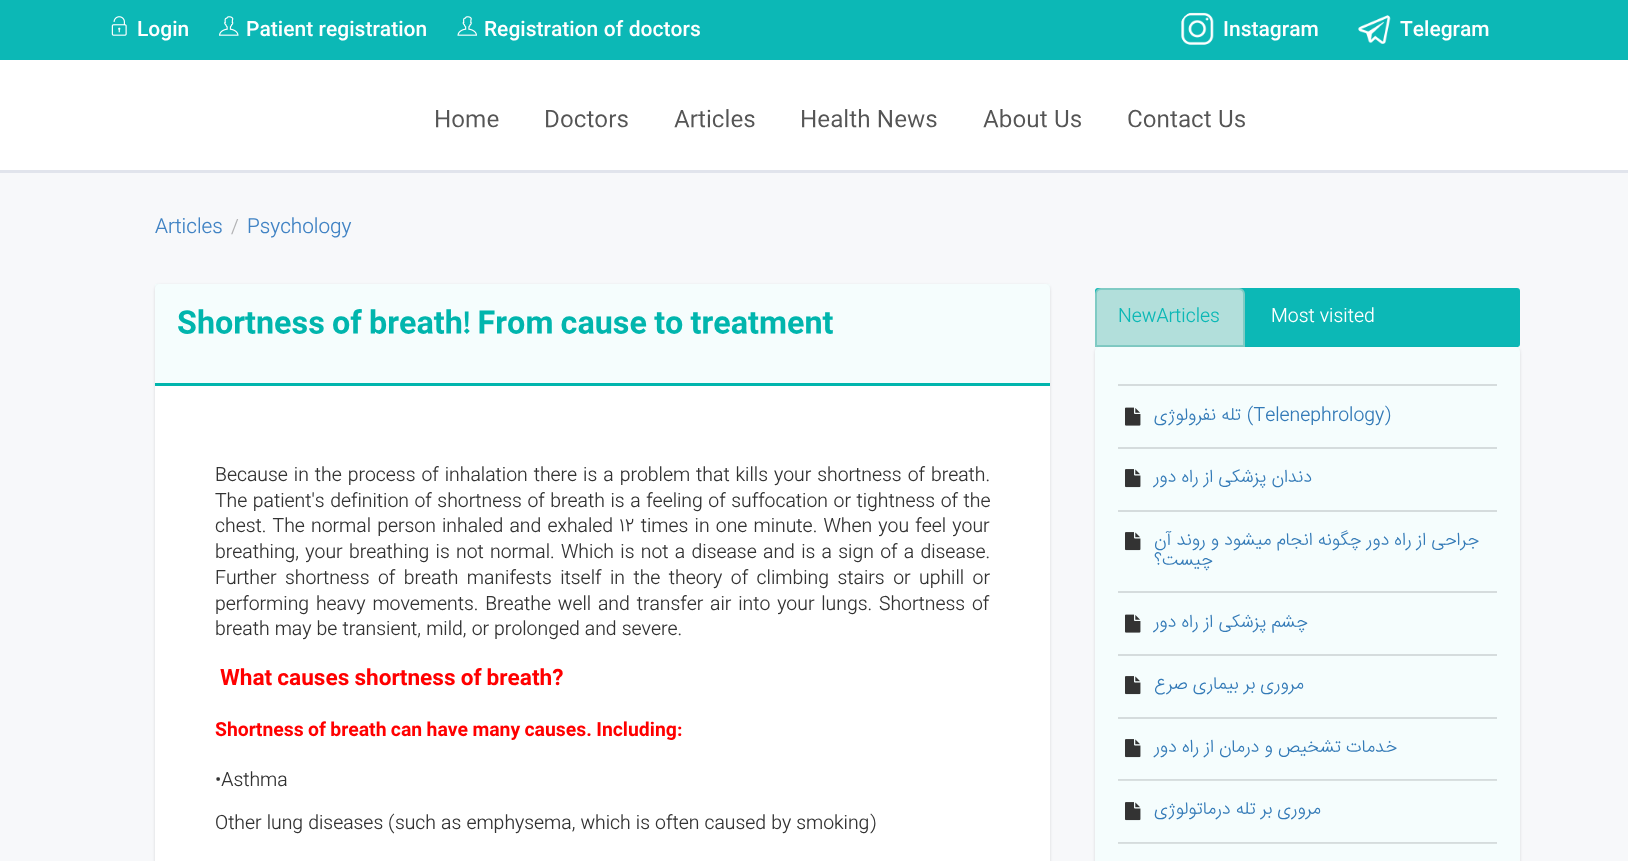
<!DOCTYPE html>
<meta charset="utf-8">
<style>body { margin: 0 } canvas { display: block }</style>
<canvas id="canvas" width="1628" height="861"></canvas>
<script type="module">
  const canvas = document.getElementById("canvas");
  const ctx = canvas.getContext("2d");
  ctx.miterLimit = 4;
  ctx.fontKerning = "normal";
  async function loadImage(src) {
    const img = new Image();
    img.src = src;
    await img.decode();
    return img;
  }

  ctx.fillStyle = "#ffffff";
  ctx.fillRect(0, 0, 1628, 861);
  ctx.fillStyle = "#0cb8b6";
  ctx.fillRect(0, 0, 1628, 60);
  ctx.drawImage(await loadImage("img1.png"), 111, 16, 16, 20);
  ctx.font = "500 19.5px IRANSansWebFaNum";
  ctx.fillStyle = "#ffffff";
  ctx.fillText("Login", 137, 35);
  ctx.drawImage(await loadImage("img2.png"), 219, 16, 20, 20);
  ctx.fillText("Patient registration", 246, 35);
  ctx.drawImage(await loadImage("img3.png"), 457, 16, 20, 20);
  ctx.fillText("Registration of doctors", 484, 35);
  ctx.drawImage(await loadImage("img4.png"), 1181, 12, 33, 33);
  ctx.fillText("Instagram", 1223, 35);
  ctx.drawImage(await loadImage("img5.png"), 1358, 15, 33, 29);
  ctx.fillText("Telegram", 1400, 35);
  ctx.fillStyle = "#e1e4ec";
  ctx.fillRect(0, 170, 1628, 3);
  ctx.font = "22.5px IRANSansWebFaNum";
  ctx.fillStyle = "#555555";
  ctx.fillText("Home", 434, 126);
  ctx.fillText("Doctors", 544, 126);
  ctx.fillText("Articles", 674, 126);
  ctx.fillText("Health News", 800, 126);
  ctx.fillText("About Us", 983, 126);
  ctx.fillText("Contact Us", 1127, 126);
  ctx.fillStyle = "#f7f8fa";
  ctx.fillRect(0, 173, 1628, 688);
  ctx.font = "300 19.25px IRANSansWebFaNum";
  ctx.fillStyle = "#4183c4";
  ctx.fillText("Articles", 155, 232);
  ctx.font = "300 18px IRANSansWebFaNum";
  ctx.fillStyle = "#b2b2b4";
  ctx.fillText("/", 231, 232);
  ctx.font = "300 19.25px IRANSansWebFaNum";
  ctx.fillStyle = "#4183c4";
  ctx.fillText("Psychology", 247, 232);
  ctx.fillStyle = "#f5fdfd";
  ctx.fillRect(155, 284, 895, 99);
  ctx.save();
  ctx.beginPath();
  ctx.moveTo(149, 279);
  ctx.lineTo(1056, 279);
  ctx.lineTo(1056, 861);
  ctx.lineTo(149, 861);
  ctx.closePath();
  ctx.moveTo(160, 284);
  ctx.lineTo(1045, 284);
  ctx.bezierCurveTo(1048, 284, 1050, 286, 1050, 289);
  ctx.lineTo(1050, 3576);
  ctx.bezierCurveTo(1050, 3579, 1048, 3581, 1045, 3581);
  ctx.lineTo(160, 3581);
  ctx.bezierCurveTo(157, 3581, 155, 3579, 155, 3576);
  ctx.lineTo(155, 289);
  ctx.bezierCurveTo(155, 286, 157, 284, 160, 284);
  ctx.closePath();
  ctx.clip("evenodd");
  ctx.fillStyle = "rgba(34, 36, 38, 0.15)";
  ctx.filter = "blur(1.5px)";
  ctx.beginPath();
  ctx.roundRect(155, 285, 895, 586, 5);
  ctx.fill();
  ctx.filter = "none";
  ctx.restore();
  ctx.font = "bold 30px IRANSansWebFaNum";
  ctx.fillStyle = "#00b5ad";
  ctx.fillText("Shortness of breath! From cause to treatment", 177, 332);
  ctx.fillStyle = "#ffffff";
  ctx.fillRect(155, 386, 895, 475);
  ctx.fillStyle = "#00b5ad";
  ctx.fillRect(155, 383, 895, 3);
  ctx.wordSpacing = "0.9px";
  ctx.font = "300 18px IRANSansWebFaNum";
  ctx.fillStyle = "#333333";
  ctx.fillText("Because in the process of inhalation there is a problem that kills your shortness of breath.", 215, 480);
  ctx.wordSpacing = "0.5px";
  ctx.fillText("The patient's definition of shortness of breath is a feeling of suffocation or tightness of the", 215, 506);
  ctx.wordSpacing = "1.1px";
  ctx.fillText("chest. The normal person inhaled and exhaled 12 times in one minute. When you feel your", 215, 531);
  ctx.wordSpacing = "1.2px";
  ctx.fillText("breathing, your breathing is not normal. Which is not a disease and is a sign of a disease.", 215, 557);
  ctx.wordSpacing = "3.4px";
  ctx.fillText("Further shortness of breath manifests itself in the theory of climbing stairs or uphill or", 215, 583);
  ctx.wordSpacing = "1.75px";
  ctx.fillText("performing heavy movements. Breathe well and transfer air into your lungs. Shortness of", 215, 609);
  ctx.wordSpacing = "0px";
  ctx.fillText("breath may be transient, mild, or prolonged and severe.", 215, 634);
  ctx.font = "bold 21px IRANSansWebFaNum";
  ctx.fillStyle = "#ff0000";
  ctx.fillText("What causes shortness of breath?", 220, 684);
  ctx.font = "bold 18px IRANSansWebFaNum";
  ctx.fillText("Shortness of breath can have many causes. Including:", 215, 735);
  ctx.font = "300 18px IRANSansWebFaNum";
  ctx.fillStyle = "#333333";
  ctx.fillText("•Asthma", 215, 785);
  ctx.fillText("Other lung diseases (such as emphysema, which is often caused by smoking)", 215, 828);
  ctx.fillStyle = "#f5fdfd";
  ctx.fillRect(1095, 288, 425, 573);
  ctx.fillStyle = "#0cb8b6";
  ctx.beginPath();
  ctx.roundRect(1095, 288, 425, 59, 3);
  ctx.fill();
  ctx.fillRect(1517, 346, 1, 1);
  ctx.fillStyle = "#b2dfdb";
  ctx.beginPath();
  ctx.roundRect(1096, 289, 148, 57, [5, 5, 0, 0]);
  ctx.fill();
  ctx.strokeStyle = "#80cbc4";
  ctx.lineWidth = 2;
  ctx.stroke();
  ctx.fillStyle = "#0cb8b6";
  ctx.fillText("NewArticles", 1118, 321);
  ctx.fillStyle = "#ffffff";
  ctx.fillText("Most visited", 1271, 321);
  ctx.save();
  ctx.beginPath();
  ctx.moveTo(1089, 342);
  ctx.lineTo(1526, 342);
  ctx.lineTo(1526, 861);
  ctx.lineTo(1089, 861);
  ctx.closePath();
  ctx.moveTo(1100, 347);
  ctx.lineTo(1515, 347);
  ctx.bezierCurveTo(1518, 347, 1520, 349, 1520, 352);
  ctx.lineTo(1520, 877);
  ctx.bezierCurveTo(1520, 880, 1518, 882, 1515, 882);
  ctx.lineTo(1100, 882);
  ctx.bezierCurveTo(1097, 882, 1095, 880, 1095, 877);
  ctx.lineTo(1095, 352);
  ctx.bezierCurveTo(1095, 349, 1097, 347, 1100, 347);
  ctx.closePath();
  ctx.clip("evenodd");
  ctx.fillStyle = "rgba(34, 36, 38, 0.15)";
  ctx.filter = "blur(1.5px)";
  ctx.beginPath();
  ctx.roundRect(1095, 348, 425, 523, 5);
  ctx.fill();
  ctx.filter = "none";
  ctx.restore();
  ctx.fillStyle = "#d5dcdd";
  ctx.fillRect(1118, 384, 379, 2);
  ctx.drawImage(await loadImage("img6.png"), 1125, 407, 16, 19);
  ctx.direction = "rtl";
  ctx.fillStyle = "#337ab7";
  ctx.fillText("تله نفرولوژی", 1241, 420);
  ctx.direction = "ltr";
  ctx.fillText("(Telenephrology)", 1247, 420);
  ctx.fillStyle = "#d5dcdd";
  ctx.fillRect(1118, 447, 379, 2);
  ctx.drawImage(await loadImage("img7.png"), 1125, 469, 16, 19);
  ctx.direction = "rtl";
  ctx.fillStyle = "#337ab7";
  ctx.fillText("دندان پزشکی از راه دور", 1312, 482);
  ctx.fillStyle = "#d5dcdd";
  ctx.fillRect(1118, 510, 379, 2);
  ctx.drawImage(await loadImage("img7.png"), 1125, 532, 16, 19);
  ctx.fillStyle = "#337ab7";
  ctx.fillText("جراحی از راه دور چگونه انجام میشود و روند آن", 1479, 545);
  ctx.fillText("چیست؟", 1213, 565);
  ctx.fillStyle = "#d5dcdd";
  ctx.fillRect(1118, 591, 379, 2);
  ctx.drawImage(await loadImage("img6.png"), 1125, 614, 16, 19);
  ctx.fillStyle = "#337ab7";
  ctx.fillText("چشم پزشکی از راه دور", 1308, 627);
  ctx.fillStyle = "#d5dcdd";
  ctx.fillRect(1118, 654, 379, 2);
  ctx.drawImage(await loadImage("img7.png"), 1125, 676, 16, 19);
  ctx.fillStyle = "#337ab7";
  ctx.fillText("مروری بر بیماری صرع", 1304, 689);
  ctx.fillStyle = "#d5dcdd";
  ctx.fillRect(1118, 717, 379, 2);
  ctx.drawImage(await loadImage("img7.png"), 1125, 739, 16, 19);
  ctx.fillStyle = "#337ab7";
  ctx.fillText("خدمات تشخیص و درمان از راه دور", 1397, 752);
  ctx.fillStyle = "#d5dcdd";
  ctx.fillRect(1118, 779, 379, 1);
  ctx.fillStyle = "#d9e0e0";
  ctx.fillRect(1118, 780, 379, 1);
  ctx.drawImage(await loadImage("img7.png"), 1125, 802, 16, 19);
  ctx.fillStyle = "#337ab7";
  ctx.fillText("مروری بر تله درماتولوژی", 1321, 814);
  ctx.fillStyle = "#d5dcdd";
  ctx.fillRect(1118, 842, 379, 1);
  ctx.fillStyle = "#d9e0e0";
  ctx.fillRect(1118, 843, 379, 1);
</script>
